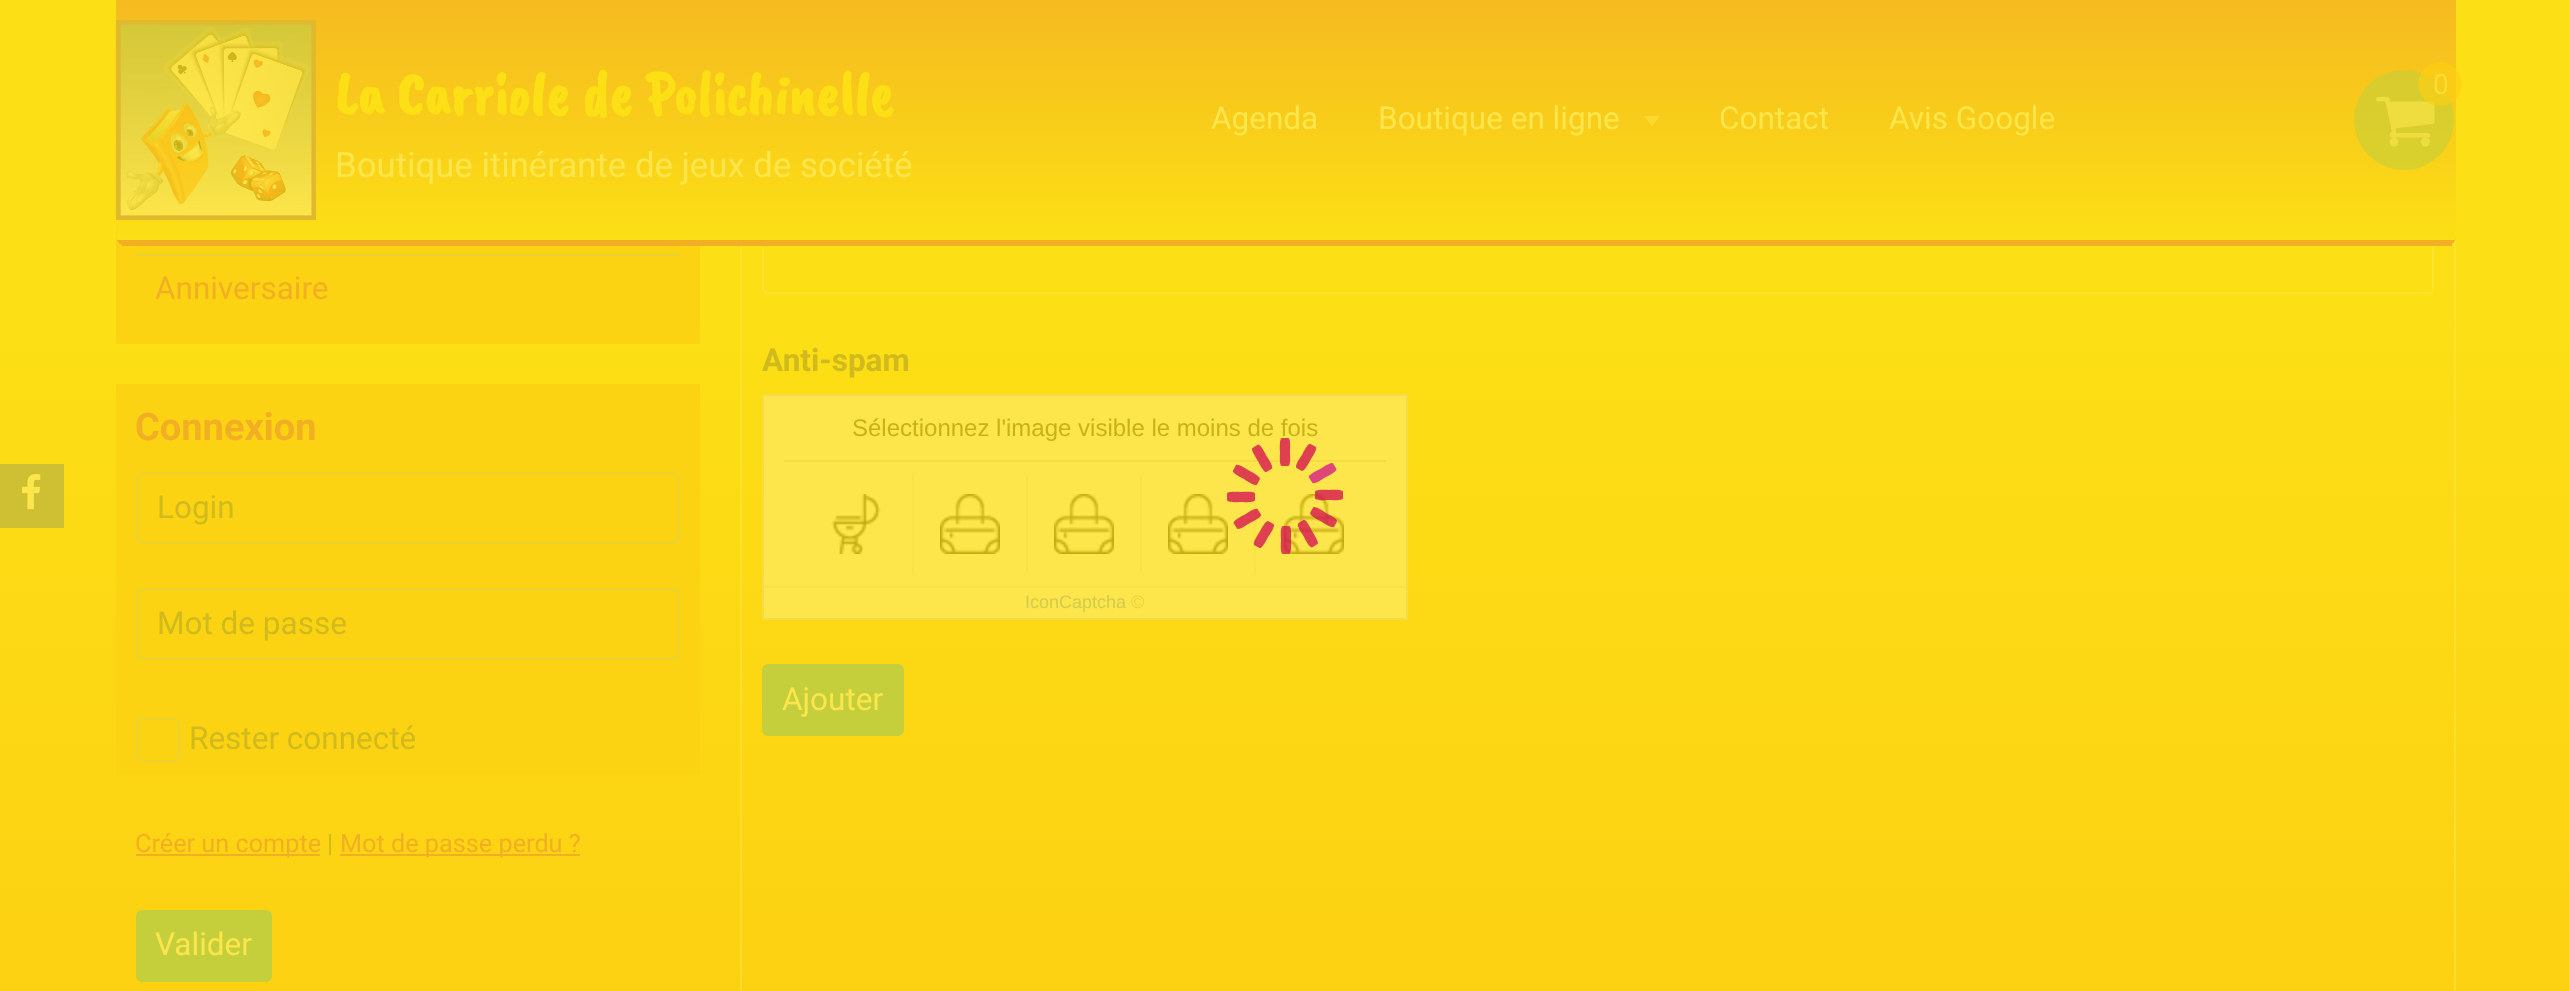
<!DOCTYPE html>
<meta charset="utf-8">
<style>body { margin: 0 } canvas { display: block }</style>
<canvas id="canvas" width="2569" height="991"></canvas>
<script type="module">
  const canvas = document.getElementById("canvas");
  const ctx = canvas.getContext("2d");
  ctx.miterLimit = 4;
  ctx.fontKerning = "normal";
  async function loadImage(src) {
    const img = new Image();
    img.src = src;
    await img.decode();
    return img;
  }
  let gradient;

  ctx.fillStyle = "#ffffff";
  ctx.fillRect(0, 0, 2569, 991);
  gradient = ctx.createLinearGradient(1285, 0, 1285, 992);
  gradient.addColorStop(0, "#fcdf15");
  gradient.addColorStop(0.32, "#fcdf15");
  gradient.addColorStop(1, "#fcd112");
  ctx.fillStyle = gradient;
  ctx.fillRect(0, 0, 2569, 991);
  ctx.fillStyle = "#fcd312";
  ctx.fillRect(116, 236, 584, 108);
  ctx.strokeStyle = "rgba(253, 230, 75, 0.5)";
  ctx.lineWidth = 2;
  ctx.strokeRect(741, -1, 1714, 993);
  ctx.beginPath();
  ctx.roundRect(763, -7, 1670, 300, 5);
  ctx.strokeStyle = "#fce330";
  ctx.stroke();
  ctx.fillStyle = "#f3af23";
  ctx.beginPath();
  ctx.moveTo(116, -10);
  ctx.lineTo(2456, -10);
  ctx.lineTo(2456, 236);
  ctx.bezierCurveTo(2456, 241.5, 2451.5, 246, 2446, 246);
  ctx.lineTo(126, 246);
  ctx.bezierCurveTo(120.5, 246, 116, 241.5, 116, 236);
  ctx.closePath();
  ctx.fill();
  ctx.save();
  ctx.beginPath();
  ctx.moveTo(116, -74);
  ctx.lineTo(2456, -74);
  ctx.lineTo(2456, 236);
  ctx.bezierCurveTo(2456, 241.5, 2451.5, 246, 2446, 246);
  ctx.lineTo(126, 246);
  ctx.bezierCurveTo(120.5, 246, 116, 241.5, 116, 236);
  ctx.closePath();
  ctx.clip();
  gradient = ctx.createLinearGradient(1286, -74, 1286, 240);
  gradient.addColorStop(0, "rgba(252, 223, 21, 0)");
  gradient.addColorStop(1, "#fcdf15");
  ctx.fillStyle = gradient;
  ctx.fillRect(116, 0, 2340, 240);
  ctx.restore();
  ctx.fillRect(122, 244, 2330, 2);
  ctx.drawImage(await loadImage("img1.png"), 115, 20, 201, 200);
  ctx.font = "bold 61.5px Caveat Brush";
  ctx.fillStyle = "#fcdf15";
  ctx.fillText("La Carriole de Polichinelle", 335, 114);
  ctx.font = "34.75px Roboto";
  ctx.fillStyle = "#fde64b";
  ctx.fillText("Boutique itinérante de jeux de société", 335, 177);
  ctx.fillStyle = "rgba(197, 207, 59, 0.6)";
  ctx.beginPath();
  ctx.arc(2404, 120, 50, 0, Math.PI * 2);
  ctx.fill();
  ctx.drawImage(await loadImage("img2.png"), 2376, 96, 59, 51);
  ctx.fillStyle = "rgba(253, 207, 16, 0.6)";
  ctx.beginPath();
  ctx.arc(2440, 84, 22, 0, Math.PI * 2);
  ctx.fill();
  ctx.font = "28px Roboto";
  ctx.fillStyle = "#fadc36";
  ctx.fillText("0", 2433, 94);
  ctx.font = "31.5px Roboto";
  ctx.fillStyle = "#fde64b";
  ctx.fillText("Agenda", 1211, 129);
  ctx.fillText("Boutique en ligne", 1378, 129);
  ctx.fillStyle = "rgba(253, 230, 75, 0.5)";
  ctx.beginPath();
  ctx.moveTo(1644, 116);
  ctx.lineTo(1660, 116);
  ctx.lineTo(1652, 126);
  ctx.closePath();
  ctx.fill();
  ctx.fillStyle = "#fde64b";
  ctx.fillText("Contact", 1719, 129);
  ctx.fillText("Avis Google", 1889, 129);
  ctx.fillStyle = "#e9d337";
  ctx.fillRect(136, 254, 544, 2);
  ctx.fillStyle = "#f3af23";
  ctx.fillText("Anniversaire", 155, 299);
  ctx.fillStyle = "#fcd312";
  ctx.fillRect(116, 384, 584, 391);
  ctx.font = "bold 38px Roboto";
  ctx.fillStyle = "#f3af23";
  ctx.fillText("Connexion", 135, 440);
  ctx.beginPath();
  ctx.roundRect(137, 473, 542, 70, 5);
  ctx.strokeStyle = "#e9d337";
  ctx.stroke();
  ctx.font = "31.5px Roboto";
  ctx.fillStyle = "#d0ba1e";
  ctx.fillText("Login", 157, 518);
  ctx.beginPath();
  ctx.roundRect(137, 589, 542, 70, 5);
  ctx.stroke();
  ctx.fillText("Mot de passe", 157, 634);
  ctx.beginPath();
  ctx.roundRect(137, 719, 42, 42, 5);
  ctx.stroke();
  ctx.fillText("Rester connecté", 189, 749);
  ctx.fillStyle = "#f3af23";
  ctx.fillRect(136, 854, 184, 2);
  ctx.font = "25.25px Roboto";
  ctx.fillText("Créer un compte", 135, 852);
  ctx.fillStyle = "#d0ba1e";
  ctx.fillText("|", 327, 852);
  ctx.fillStyle = "#f3af23";
  ctx.fillRect(340, 854, 240, 2);
  ctx.fillText("Mot de passe perdu ?", 340, 852);
  ctx.fillStyle = "#c5cf3b";
  ctx.beginPath();
  ctx.roundRect(136, 910, 136, 72, 6);
  ctx.fill();
  ctx.font = "31.5px Roboto";
  ctx.fillStyle = "#fde64b";
  ctx.fillText("Valider", 155, 955);
  ctx.font = "bold 31.5px Roboto";
  ctx.fillStyle = "#d0ba1e";
  ctx.fillText("Anti-spam", 762, 371);
  ctx.fillStyle = "#fde64b";
  ctx.beginPath();
  ctx.rect(763, 395, 644, 224);
  ctx.fill();
  ctx.strokeStyle = "#f4dd42";
  ctx.stroke();
  ctx.fillStyle = "#f4dd42";
  ctx.fillRect(784, 460, 602, 2);
  ctx.font = "24px Liberation Sans";
  ctx.fillStyle = "#c9b217";
  ctx.fillText("Sélectionnez l'image visible le moins de fois", 852, 436);
  ctx.drawImage(await loadImage("img3.png"), 831, 494, 50, 60);
  ctx.fillStyle = "#f8e246";
  ctx.fillRect(912, 474, 2, 100);
  ctx.drawImage(await loadImage("img4.png"), 940, 494, 60, 60);
  ctx.fillRect(1026, 474, 2, 100);
  ctx.drawImage(await loadImage("img4.png"), 1054, 494, 60, 60);
  ctx.fillRect(1140, 474, 2, 100);
  ctx.drawImage(await loadImage("img4.png"), 1168, 494, 60, 60);
  ctx.fillRect(1254, 474, 2, 100);
  ctx.drawImage(await loadImage("img4.png"), 1284, 494, 60, 60);
  ctx.fillRect(764, 586, 642, 2);
  ctx.font = "18px Liberation Sans";
  ctx.fillStyle = "#d2cb4b";
  ctx.fillText("IconCaptcha", 1025, 608);
  ctx.fillStyle = "#e8d237";
  ctx.fillText("©", 1131, 608);
  ctx.fillStyle = "#c5cf3b";
  ctx.beginPath();
  ctx.roundRect(762, 664, 142, 72, 6);
  ctx.fill();
  ctx.font = "31.5px Roboto";
  ctx.fillStyle = "#fde64b";
  ctx.fillText("Ajouter", 782, 710);
  ctx.fillStyle = "#cfbf33";
  ctx.fillRect(0, 464, 64, 64);
  ctx.drawImage(await loadImage("img5.png"), 22, 474, 19, 36);
  ctx.fillStyle = "rgba(212, 14, 82, 0.77)";
  ctx.beginPath();
  ctx.moveTo(1233, 470.5);
  ctx.lineTo(1236, 465);
  ctx.bezierCurveTo(1238.5, 463.5, 1247, 469.5, 1249, 470.5);
  ctx.bezierCurveTo(1250.5, 471.5, 1260, 476, 1260, 479);
  ctx.lineTo(1257, 484.5);
  ctx.bezierCurveTo(1255.5, 487, 1245, 480, 1244, 479);
  ctx.bezierCurveTo(1243, 478.5, 1231.5, 473, 1233, 470.5);
  ctx.closePath();
  ctx.fill();
  ctx.beginPath();
  ctx.moveTo(1252.5, 448);
  ctx.lineTo(1258, 444.5);
  ctx.bezierCurveTo(1261, 444.5, 1265.5, 454, 1266.5, 456);
  ctx.bezierCurveTo(1267.5, 457.5, 1273.5, 466, 1272, 468.5);
  ctx.lineTo(1266.5, 472);
  ctx.bezierCurveTo(1264, 473.5, 1258.5, 462, 1258, 461);
  ctx.bezierCurveTo(1257.5, 460, 1250, 449, 1252.5, 448);
  ctx.closePath();
  ctx.fill();
  ctx.beginPath();
  ctx.moveTo(1282, 438);
  ctx.lineTo(1288.5, 438);
  ctx.bezierCurveTo(1291, 439.5, 1290, 450, 1290, 452);
  ctx.bezierCurveTo(1290, 454, 1291, 464.5, 1288.5, 466);
  ctx.lineTo(1282, 466);
  ctx.bezierCurveTo(1279, 466, 1280, 453, 1280, 452);
  ctx.bezierCurveTo(1280, 451, 1279, 438, 1282, 438);
  ctx.closePath();
  ctx.moveTo(1310.5, 444);
  ctx.lineTo(1316, 447);
  ctx.bezierCurveTo(1317.5, 449.5, 1311.5, 458, 1310.5, 460);
  ctx.bezierCurveTo(1309.5, 461.5, 1305, 471, 1302, 471);
  ctx.lineTo(1296.5, 468);
  ctx.bezierCurveTo(1294, 466.5, 1301, 456, 1302, 455);
  ctx.bezierCurveTo(1302.5, 454, 1308, 442.5, 1310.5, 444);
  ctx.closePath();
  ctx.fill();
  ctx.fillStyle = "#de4579";
  ctx.beginPath();
  ctx.moveTo(1333, 463.5);
  ctx.lineTo(1336.5, 469);
  ctx.bezierCurveTo(1336.5, 472, 1327, 476.5, 1325, 477.5);
  ctx.bezierCurveTo(1323.5, 478.5, 1315, 484.5, 1312.5, 483);
  ctx.lineTo(1309, 477.5);
  ctx.bezierCurveTo(1307.5, 475, 1319, 469.5, 1320, 469);
  ctx.bezierCurveTo(1321, 468.5, 1332, 461, 1333, 463.5);
  ctx.closePath();
  ctx.fill();
  ctx.fillStyle = "rgba(212, 14, 82, 0.77)";
  ctx.beginPath();
  ctx.moveTo(1259.5, 548);
  ctx.lineTo(1254, 545);
  ctx.bezierCurveTo(1252.5, 542.5, 1258.5, 534, 1259.5, 532);
  ctx.bezierCurveTo(1260.5, 530.5, 1265, 521, 1268, 521);
  ctx.lineTo(1273.5, 524);
  ctx.bezierCurveTo(1276, 525.5, 1269, 536, 1268, 537);
  ctx.bezierCurveTo(1267.5, 538, 1262, 549.5, 1259.5, 548);
  ctx.closePath();
  ctx.fill();
  ctx.beginPath();
  ctx.moveTo(1237, 528.5);
  ctx.lineTo(1233.5, 523);
  ctx.bezierCurveTo(1233.5, 520, 1243, 515.5, 1245, 514.5);
  ctx.bezierCurveTo(1246.5, 513.5, 1255, 507.5, 1257.5, 509);
  ctx.lineTo(1261, 514.5);
  ctx.bezierCurveTo(1262.5, 517, 1251, 522.5, 1250, 523);
  ctx.bezierCurveTo(1249, 523.5, 1238, 531, 1237, 528.5);
  ctx.closePath();
  ctx.moveTo(1227, 500);
  ctx.lineTo(1227, 493.5);
  ctx.bezierCurveTo(1228.5, 491, 1239, 492, 1241, 492);
  ctx.bezierCurveTo(1243, 492, 1253.5, 491, 1255, 493.5);
  ctx.lineTo(1255, 500);
  ctx.bezierCurveTo(1255, 503, 1242, 502, 1241, 502);
  ctx.bezierCurveTo(1240, 502, 1227, 503, 1227, 500);
  ctx.closePath();
  ctx.fill();
  ctx.beginPath();
  ctx.moveTo(1343, 492);
  ctx.lineTo(1343, 498.5);
  ctx.bezierCurveTo(1341.5, 501, 1331, 500, 1329, 500);
  ctx.bezierCurveTo(1327, 500, 1316.5, 501, 1315, 498.5);
  ctx.lineTo(1315, 492);
  ctx.bezierCurveTo(1315, 489, 1328, 490, 1329, 490);
  ctx.bezierCurveTo(1330, 490, 1343, 489, 1343, 492);
  ctx.closePath();
  ctx.moveTo(1337, 521.5);
  ctx.lineTo(1334, 527);
  ctx.bezierCurveTo(1331.5, 528.5, 1323, 522.5, 1321, 521.5);
  ctx.bezierCurveTo(1319.5, 520.5, 1310, 516, 1310, 513);
  ctx.lineTo(1313, 507.5);
  ctx.bezierCurveTo(1314.5, 505, 1325, 512, 1326, 513);
  ctx.bezierCurveTo(1327, 513.5, 1338.5, 519, 1337, 521.5);
  ctx.closePath();
  ctx.fill();
  ctx.beginPath();
  ctx.moveTo(1317.5, 544);
  ctx.lineTo(1312, 547.5);
  ctx.bezierCurveTo(1309, 547.5, 1304.5, 538, 1303.5, 536);
  ctx.bezierCurveTo(1302.5, 534.5, 1296.5, 526, 1298, 523.5);
  ctx.lineTo(1303.5, 520);
  ctx.bezierCurveTo(1306, 518.5, 1311.5, 530, 1312, 531);
  ctx.bezierCurveTo(1312.5, 532, 1320, 543, 1317.5, 544);
  ctx.closePath();
  ctx.moveTo(1289, 554);
  ctx.lineTo(1282.5, 554);
  ctx.bezierCurveTo(1280, 552.5, 1281, 542, 1281, 540);
  ctx.bezierCurveTo(1281, 538, 1280, 527.5, 1282.5, 526);
  ctx.lineTo(1289, 526);
  ctx.bezierCurveTo(1292, 526, 1291, 539, 1291, 540);
  ctx.bezierCurveTo(1291, 541, 1292, 554, 1289, 554);
  ctx.closePath();
  ctx.fill();
</script>
